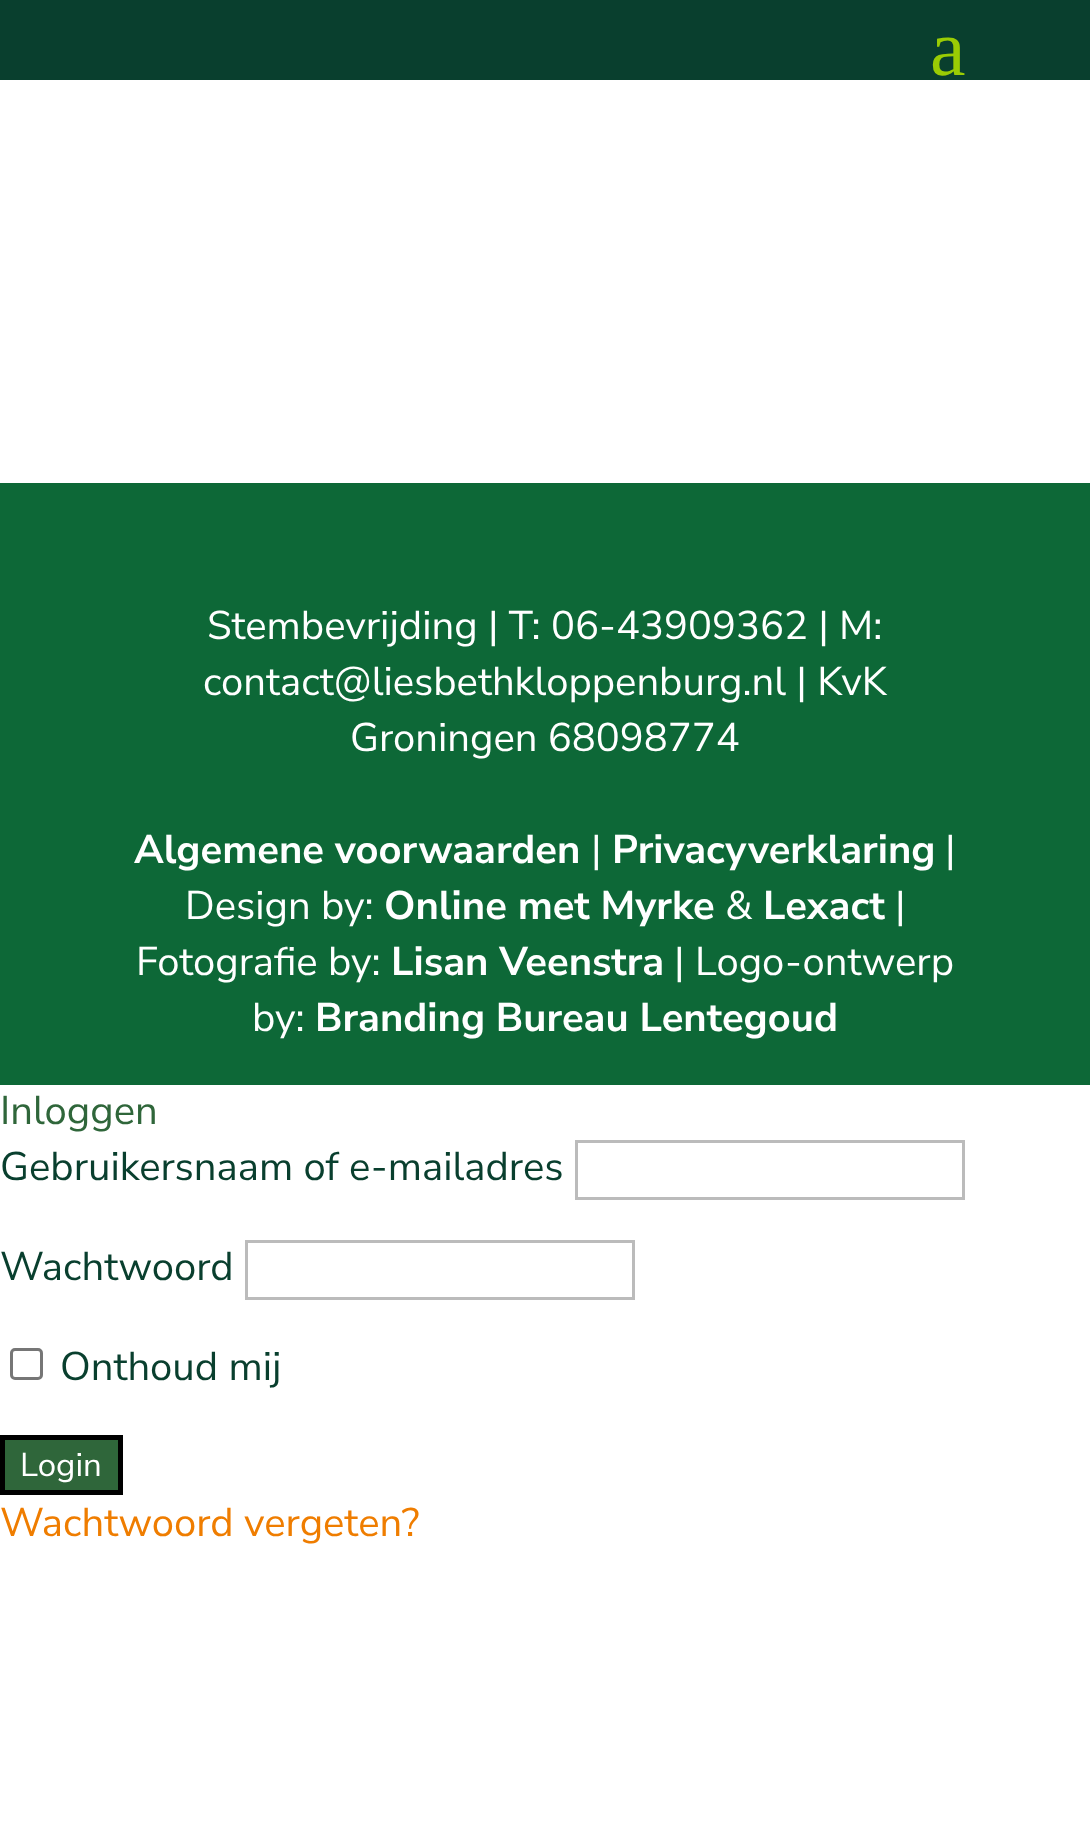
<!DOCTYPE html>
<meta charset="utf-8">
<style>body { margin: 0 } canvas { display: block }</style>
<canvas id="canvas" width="1090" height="1833"></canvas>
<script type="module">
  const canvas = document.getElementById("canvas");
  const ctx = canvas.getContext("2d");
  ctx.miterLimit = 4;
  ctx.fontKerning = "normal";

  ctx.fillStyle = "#ffffff";
  ctx.fillRect(0, 0, 1090, 1833);
  ctx.fillStyle = "#093f2e";
  ctx.fillRect(0, 0, 1090, 80);
  ctx.font = "80px Liberation Serif";
  ctx.fillStyle = "#9acc04";
  ctx.fillText("a", 930, 75);
  ctx.fillStyle = "#0d6837";
  ctx.fillRect(0, 483, 1090, 602);
  ctx.font = "40px Nunito Sans";
  ctx.fillStyle = "#ffffff";
  ctx.fillText("Stembevrijding | T: 06-43909362 | M:", 207, 639);
  ctx.fillText("contact@liesbethkloppenburg.nl | KvK", 203, 695);
  ctx.fillText("Groningen 68098774", 350, 751);
  ctx.font = "bold 40px Nunito Sans";
  ctx.fillText("Algemene voorwaarden", 134, 863);
  ctx.font = "40px Nunito Sans";
  ctx.fillText("|", 591, 863);
  ctx.font = "bold 40px Nunito Sans";
  ctx.fillText("Privacyverklaring", 612, 863);
  ctx.font = "40px Nunito Sans";
  ctx.fillText("|", 945, 863);
  ctx.fillText("Design by:", 185, 919);
  ctx.font = "bold 40px Nunito Sans";
  ctx.fillText("Online met Myrke", 384, 919);
  ctx.font = "40px Nunito Sans";
  ctx.fillText("&", 725, 919);
  ctx.font = "bold 40px Nunito Sans";
  ctx.fillText("Lexact", 763, 919);
  ctx.font = "40px Nunito Sans";
  ctx.fillText("|", 895, 919);
  ctx.fillText("Fotografie by:", 136, 975);
  ctx.font = "bold 40px Nunito Sans";
  ctx.fillText("Lisan Veenstra", 391, 975);
  ctx.font = "40px Nunito Sans";
  ctx.fillText("| Logo-ontwerp", 674, 975);
  ctx.fillText("by:", 252, 1031);
  ctx.font = "bold 40px Nunito Sans";
  ctx.fillText("Branding Bureau Lentegoud", 315, 1031);
  ctx.font = "40px Nunito Sans";
  ctx.fillStyle = "#2f663a";
  ctx.fillText("Inloggen", 0, 1124);
  ctx.fillStyle = "#093f2e";
  ctx.fillText("Gebruikersnaam of e-mailadres", 0, 1180);
  ctx.strokeStyle = "#bbbbbb";
  ctx.lineWidth = 3;
  ctx.strokeRect(576.5, 1141.5, 387, 57);
  ctx.fillText("Wachtwoord", 0, 1280);
  ctx.strokeRect(246.5, 1241.5, 387, 57);
  ctx.beginPath();
  ctx.roundRect(11.5, 1349.5, 30, 29, 3.5);
  ctx.strokeStyle = "#767676";
  ctx.stroke();
  ctx.fillText("Onthoud mij", 60, 1380);
  ctx.fillStyle = "#2f663a";
  ctx.beginPath();
  ctx.rect(2.5, 1437.5, 118, 55);
  ctx.fill();
  ctx.strokeStyle = "#000000";
  ctx.lineWidth = 5;
  ctx.stroke();
  ctx.font = "33px Nunito Sans";
  ctx.fillStyle = "#ffffff";
  ctx.fillText("Login", 20, 1476);
  ctx.font = "40px Nunito Sans";
  ctx.fillStyle = "#ef7d00";
  ctx.fillText("Wachtwoord vergeten?", 0, 1536);
</script>
